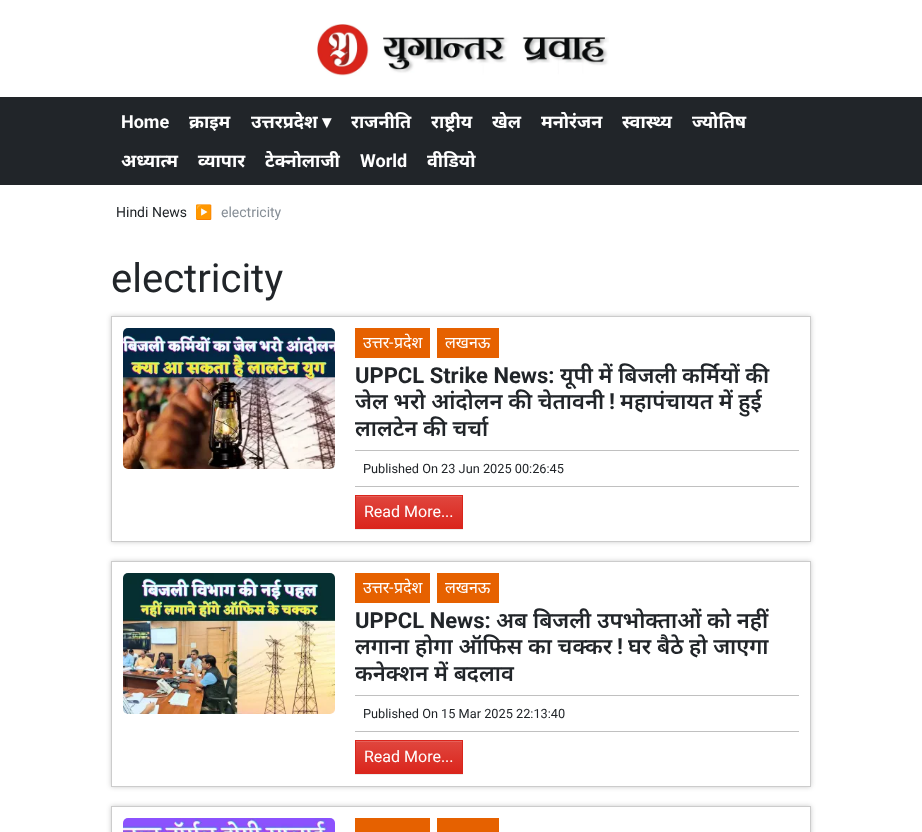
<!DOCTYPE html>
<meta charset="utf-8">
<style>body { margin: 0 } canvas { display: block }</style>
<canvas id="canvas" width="922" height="832"></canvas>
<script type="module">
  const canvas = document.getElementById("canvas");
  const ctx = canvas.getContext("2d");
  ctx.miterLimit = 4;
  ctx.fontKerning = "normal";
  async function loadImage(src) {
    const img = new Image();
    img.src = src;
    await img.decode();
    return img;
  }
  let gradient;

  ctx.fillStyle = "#ffffff";
  ctx.fillRect(0, 0, 922, 832);
  ctx.drawImage(await loadImage("img1.png"), 317, 24, 292, 52);
  ctx.fillStyle = "#212529";
  ctx.fillRect(0, 97, 922, 88);
  ctx.font = "bold 18px Roboto";
  ctx.fillStyle = "#ffffff";
  ctx.fillText("Home", 121, 128);
  ctx.font = "bold 18px Noto Sans";
  ctx.fillText("क्राइम", 189, 128);
  ctx.fillText("उत्तरप्रदेश", 251, 128);
  ctx.font = "bold 18px DejaVu Sans";
  ctx.fillText("▾", 322, 128);
  ctx.font = "bold 18px Noto Sans";
  ctx.fillText("राजनीति", 351, 128);
  ctx.fillText("राष्ट्रीय", 431, 128);
  ctx.fillText("खेल", 492, 128);
  ctx.fillText("मनोरंजन", 541, 128);
  ctx.fillText("स्वास्थ्य", 622, 128);
  ctx.fillText("ज्योतिष", 692, 128);
  ctx.fillText("अध्यात्म", 121, 167);
  ctx.fillText("व्यापार", 198, 167);
  ctx.fillText("टेक्नोलाजी", 265, 167);
  ctx.font = "bold 18px Roboto";
  ctx.fillText("World", 360, 167);
  ctx.font = "bold 18px Noto Sans";
  ctx.fillText("वीडियो", 427, 167);
  ctx.font = "14px Roboto";
  ctx.fillStyle = "#212529";
  ctx.fillText("Hindi News", 116, 217);
  ctx.font = "14px Noto Color Emoji";
  ctx.fillStyle = "#868e96";
  ctx.fillText("▶", 195, 217);
  ctx.font = "14px Roboto";
  ctx.fillText("electricity", 221, 217);
  ctx.font = "40px Roboto";
  ctx.fillStyle = "#212529";
  ctx.fillText("electricity", 111, 292);
  ctx.save();
  ctx.beginPath();
  ctx.moveTo(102, 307);
  ctx.lineTo(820, 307);
  ctx.lineTo(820, 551);
  ctx.lineTo(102, 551);
  ctx.closePath();
  ctx.moveTo(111, 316);
  ctx.lineTo(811, 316);
  ctx.lineTo(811, 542);
  ctx.lineTo(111, 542);
  ctx.closePath();
  ctx.clip("evenodd");
  ctx.fillStyle = "rgba(0, 0, 0, 0.2)";
  ctx.filter = "blur(2.5px)";
  ctx.beginPath();
  ctx.rect(111, 316, 700, 226);
  ctx.fill();
  ctx.filter = "none";
  ctx.restore();
  ctx.strokeStyle = "#cccccc";
  ctx.strokeRect(111.5, 316.5, 699, 225);
  ctx.drawImage(await loadImage("img2.png"), 123, 328, 212, 141);
  ctx.fillStyle = "#e66100";
  ctx.fillRect(355, 328, 75, 30);
  ctx.font = "16px Noto Sans";
  ctx.fillStyle = "#ffffff";
  ctx.fillText("उत्तर", 363, 348);
  ctx.font = "16px Roboto";
  ctx.fillText("-", 389, 348);
  ctx.font = "16px Noto Sans";
  ctx.fillText("प्रदेश", 394, 348);
  ctx.fillStyle = "#e66100";
  ctx.fillRect(437, 328, 62, 30);
  ctx.fillStyle = "#ffffff";
  ctx.fillText("लखनऊ", 445, 348);
  ctx.font = "bold 22px Roboto";
  ctx.fillStyle = "#212529";
  ctx.fillText("UPPCL Strike News:", 355, 383);
  ctx.font = "600 22px Noto Sans";
  ctx.fillText("यूपी में बिजली कर्मियों की", 560, 383);
  ctx.fillText("जेल भरो आंदोलन की चेतावनी", 355, 409);
  ctx.font = "bold 22px Roboto";
  ctx.fillText("!", 609, 409);
  ctx.font = "600 22px Noto Sans";
  ctx.fillText("महापंचायत में हुई", 620, 409);
  ctx.fillText("लालटेन की चर्चा", 355, 436);
  ctx.fillStyle = "#c0c0c0";
  ctx.fillRect(355, 450, 444, 1);
  ctx.fillRect(355, 486, 444, 1);
  ctx.font = "12.75px Roboto";
  ctx.fillStyle = "#212529";
  ctx.fillText("Published On 23 Jun 2025 00:26:45", 363, 473);
  ctx.fillStyle = "rgba(0, 0, 0, 0.07)";
  ctx.filter = "blur(0.5px)";
  ctx.beginPath();
  ctx.rect(355, 496, 108, 34);
  ctx.fill();
  ctx.filter = "none";
  gradient = ctx.createLinearGradient(409, 496, 409, 528);
  gradient.addColorStop(0, "#e0463e");
  gradient.addColorStop(1, "#da251c");
  ctx.fillStyle = gradient;
  ctx.fillRect(356, 497, 106, 31);
  ctx.fillStyle = "#e5615a";
  ctx.fillRect(356, 496, 106, 1);
  ctx.strokeStyle = "#da251c";
  ctx.strokeRect(355.5, 495.5, 107, 33);
  ctx.font = "16px Roboto";
  ctx.fillStyle = "#ffffff";
  ctx.fillText("Read More...", 364, 517);
  ctx.save();
  ctx.beginPath();
  ctx.moveTo(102, 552);
  ctx.lineTo(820, 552);
  ctx.lineTo(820, 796);
  ctx.lineTo(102, 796);
  ctx.closePath();
  ctx.moveTo(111, 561);
  ctx.lineTo(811, 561);
  ctx.lineTo(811, 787);
  ctx.lineTo(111, 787);
  ctx.closePath();
  ctx.clip("evenodd");
  ctx.fillStyle = "rgba(0, 0, 0, 0.2)";
  ctx.filter = "blur(2.5px)";
  ctx.beginPath();
  ctx.rect(111, 561, 700, 226);
  ctx.fill();
  ctx.filter = "none";
  ctx.restore();
  ctx.strokeStyle = "#cccccc";
  ctx.strokeRect(111.5, 561.5, 699, 225);
  ctx.drawImage(await loadImage("img3.png"), 123, 573, 212, 141);
  ctx.fillStyle = "#e66100";
  ctx.fillRect(355, 573, 75, 30);
  ctx.font = "16px Noto Sans";
  ctx.fillStyle = "#ffffff";
  ctx.fillText("उत्तर", 363, 593);
  ctx.font = "16px Roboto";
  ctx.fillText("-", 389, 593);
  ctx.font = "16px Noto Sans";
  ctx.fillText("प्रदेश", 394, 593);
  ctx.fillStyle = "#e66100";
  ctx.fillRect(437, 573, 62, 30);
  ctx.fillStyle = "#ffffff";
  ctx.fillText("लखनऊ", 445, 593);
  ctx.font = "bold 22px Roboto";
  ctx.fillStyle = "#212529";
  ctx.fillText("UPPCL News:", 355, 628);
  ctx.font = "600 22px Noto Sans";
  ctx.fillText("अब बिजली उपभोक्ताओं को नहीं", 496, 628);
  ctx.fillText("लगाना होगा ऑफिस का चक्कर", 355, 654);
  ctx.font = "bold 22px Roboto";
  ctx.fillText("!", 617, 654);
  ctx.font = "600 22px Noto Sans";
  ctx.fillText("घर बैठे हो जाएगा", 628, 654);
  ctx.fillText("कनेक्शन में बदलाव", 355, 681);
  ctx.fillStyle = "#c0c0c0";
  ctx.fillRect(355, 695, 444, 1);
  ctx.fillRect(355, 731, 444, 1);
  ctx.font = "12.75px Roboto";
  ctx.fillStyle = "#212529";
  ctx.fillText("Published On 15 Mar 2025 22:13:40", 363, 718);
  ctx.fillStyle = "rgba(0, 0, 0, 0.07)";
  ctx.filter = "blur(0.5px)";
  ctx.beginPath();
  ctx.rect(355, 741, 108, 34);
  ctx.fill();
  ctx.filter = "none";
  gradient = ctx.createLinearGradient(409, 741, 409, 773);
  gradient.addColorStop(0, "#e0463e");
  gradient.addColorStop(1, "#da251c");
  ctx.fillStyle = gradient;
  ctx.fillRect(356, 742, 106, 31);
  ctx.fillStyle = "#e5615a";
  ctx.fillRect(356, 741, 106, 1);
  ctx.strokeStyle = "#da251c";
  ctx.strokeRect(355.5, 740.5, 107, 33);
  ctx.font = "16px Roboto";
  ctx.fillStyle = "#ffffff";
  ctx.fillText("Read More...", 364, 762);
  ctx.save();
  ctx.beginPath();
  ctx.moveTo(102, 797);
  ctx.lineTo(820, 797);
  ctx.lineTo(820, 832);
  ctx.lineTo(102, 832);
  ctx.closePath();
  ctx.moveTo(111, 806);
  ctx.lineTo(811, 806);
  ctx.lineTo(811, 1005);
  ctx.lineTo(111, 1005);
  ctx.closePath();
  ctx.clip("evenodd");
  ctx.fillStyle = "rgba(0, 0, 0, 0.2)";
  ctx.filter = "blur(2.5px)";
  ctx.beginPath();
  ctx.rect(111, 806, 700, 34);
  ctx.fill();
  ctx.filter = "none";
  ctx.restore();
  ctx.strokeStyle = "#cccccc";
  ctx.strokeRect(111.5, 806.5, 699, 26);
  ctx.drawImage(await loadImage("img4.png"), 123, 818, 212, 14);
  ctx.fillStyle = "#e66100";
  ctx.fillRect(355, 818, 75, 14);
  ctx.fillRect(437, 818, 62, 14);
</script>
